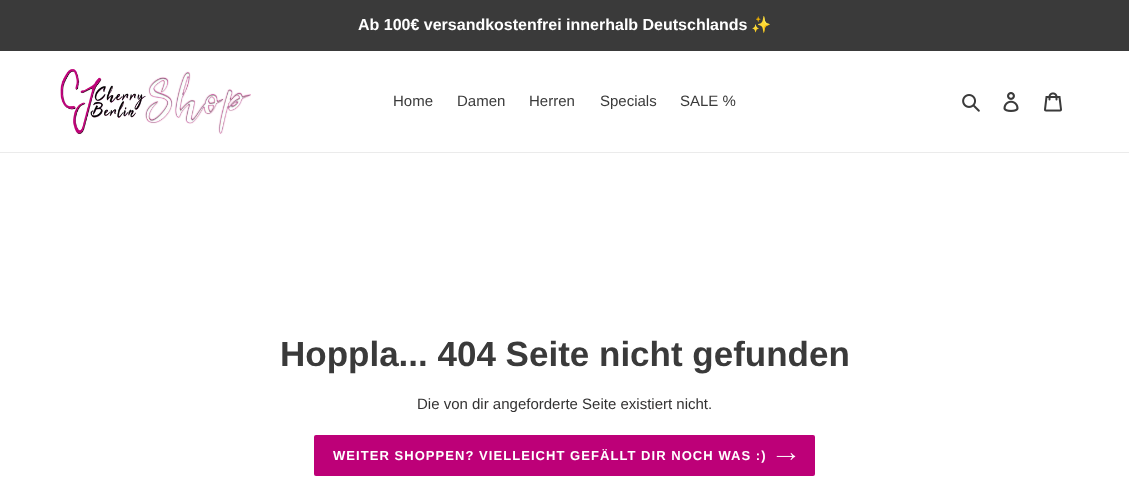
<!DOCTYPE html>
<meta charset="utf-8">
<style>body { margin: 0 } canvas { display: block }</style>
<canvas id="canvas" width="1129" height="480"></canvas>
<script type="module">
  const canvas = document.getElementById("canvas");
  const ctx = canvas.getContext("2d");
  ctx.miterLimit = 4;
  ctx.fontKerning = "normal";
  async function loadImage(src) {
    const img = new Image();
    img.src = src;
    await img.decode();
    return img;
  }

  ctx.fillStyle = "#ffffff";
  ctx.fillRect(0, 0, 1129, 480);
  ctx.fillStyle = "#3a3a3a";
  ctx.fillRect(0, 0, 1129, 51);
  ctx.font = "bold 16px Liberation Sans";
  ctx.fillStyle = "#ffffff";
  ctx.fillText("Ab 100€ versandkostenfrei innerhalb Deutschlands", 358, 30);
  ctx.font = "bold 16px Noto Color Emoji";
  ctx.fillText("✨", 751, 30);
  ctx.fillStyle = "#ebebeb";
  ctx.fillRect(0, 152, 1129, 1);
  ctx.drawImage(await loadImage("img1.png"), 60, 69, 191, 66);
  ctx.font = "15px Liberation Sans";
  ctx.fillStyle = "#3a3a3a";
  ctx.fillText("Home", 393, 106);
  ctx.fillText("Damen", 457, 106);
  ctx.fillText("Herren", 529, 106);
  ctx.fillText("Specials", 600, 106);
  ctx.fillText("SALE %", 680, 106);
  ctx.drawImage(await loadImage("img2.png"), 962, 94, 18, 18);
  ctx.drawImage(await loadImage("img3.png"), 1003, 92, 16, 20);
  ctx.drawImage(await loadImage("img4.png"), 1044, 92, 18, 20);
  ctx.font = "bold 35px Liberation Sans";
  ctx.fillText("Hoppla... 404 Seite nicht gefunden", 280, 366);
  ctx.font = "15px Liberation Sans";
  ctx.fillStyle = "#333232";
  ctx.fillText("Die von dir angeforderte Seite existiert nicht.", 417, 409);
  ctx.fillStyle = "#bd0078";
  ctx.beginPath();
  ctx.roundRect(314, 435, 501, 41, 2);
  ctx.fill();
  ctx.letterSpacing = "1.05px";
  ctx.font = "bold 13px Liberation Sans";
  ctx.fillStyle = "#ffffff";
  ctx.fillText("WEITER SHOPPEN? VIELLEICHT GEFÄLLT DIR NOCH WAS :)", 333, 460);
  ctx.drawImage(await loadImage("img5.png"), 776, 452, 20, 8);
</script>
